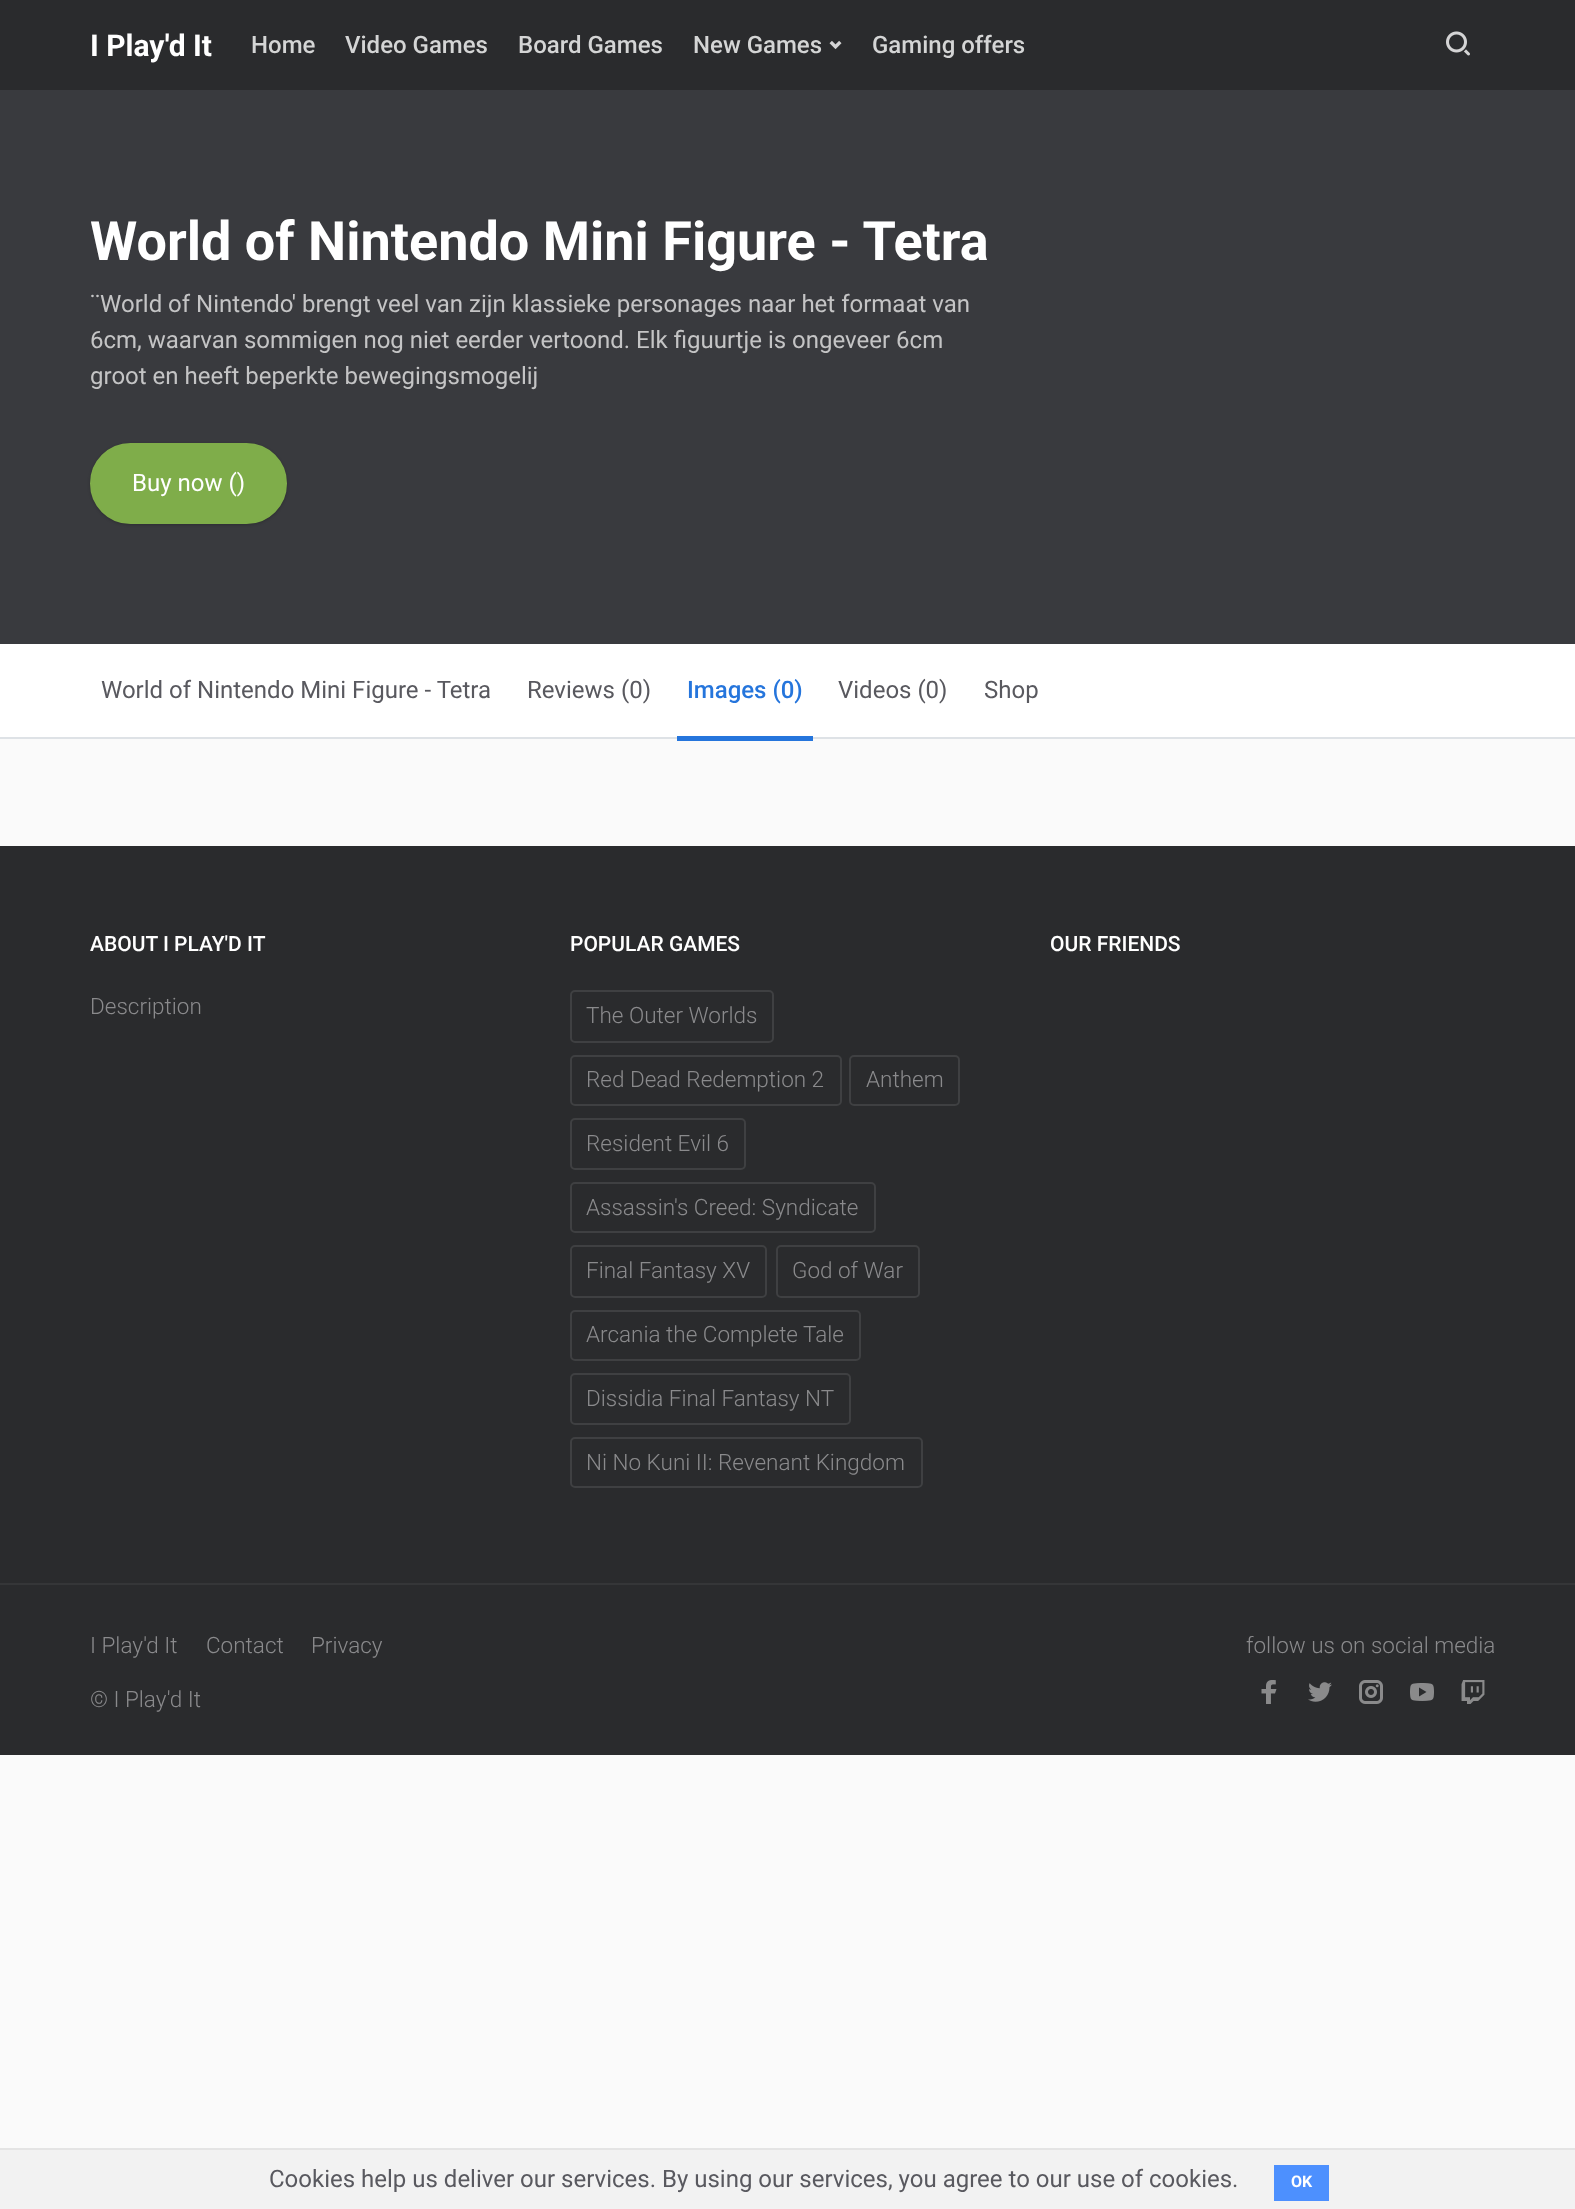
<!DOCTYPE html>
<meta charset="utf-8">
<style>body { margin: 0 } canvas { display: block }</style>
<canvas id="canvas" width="1575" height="2209"></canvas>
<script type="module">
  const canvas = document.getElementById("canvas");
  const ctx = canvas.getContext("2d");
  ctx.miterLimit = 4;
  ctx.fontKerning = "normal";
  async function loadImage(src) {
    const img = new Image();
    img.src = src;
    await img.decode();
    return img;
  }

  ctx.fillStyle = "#fafafa";
  ctx.fillRect(0, 0, 1575, 2209);
  ctx.fillStyle = "#2a2b2d";
  ctx.fillRect(0, 0, 1575, 90);
  ctx.font = "bold 30px Roboto";
  ctx.fillStyle = "#ffffff";
  ctx.fillText("I Play'd It", 90, 56);
  ctx.font = "500 24px Roboto";
  ctx.fillStyle = "#d4d5d5";
  ctx.fillText("Home", 251, 53);
  ctx.fillText("Video Games", 345, 53);
  ctx.fillText("Board Games", 518, 53);
  ctx.fillText("New Games", 693, 53);
  ctx.drawImage(await loadImage("img1.png"), 829, 40, 13, 10);
  ctx.fillText("Gaming offers", 872, 53);
  ctx.drawImage(await loadImage("img2.png"), 1446, 31, 24, 25);
  ctx.fillStyle = "#393a3e";
  ctx.fillRect(0, 90, 1575, 554);
  ctx.font = "bold 54px Roboto";
  ctx.fillStyle = "#ffffff";
  ctx.fillText("World of Nintendo Mini Figure - Tetra", 90, 260);
  ctx.font = "24px Roboto";
  ctx.fillStyle = "#c4c4c5";
  ctx.fillText("¨World of Nintendo' brengt veel van zijn klassieke personages naar het formaat van", 90, 312);
  ctx.fillText("6cm, waarvan sommigen nog niet eerder vertoond. Elk figuurtje is ongeveer 6cm", 90, 348);
  ctx.fillText("groot en heeft beperkte bewegingsmogelij", 90, 384);
  ctx.fillStyle = "rgba(0, 0, 0, 0.2)";
  ctx.filter = "blur(1.5px)";
  ctx.beginPath();
  ctx.roundRect(90, 444, 197, 81, 40.5);
  ctx.fill();
  ctx.filter = "none";
  ctx.fillStyle = "#7fad4a";
  ctx.beginPath();
  ctx.roundRect(91, 444, 195, 79, 39.5);
  ctx.fill();
  ctx.strokeStyle = "#7fad4a";
  ctx.lineWidth = 2;
  ctx.stroke();
  ctx.fillStyle = "#ffffff";
  ctx.fillText("Buy now ()", 132, 491);
  ctx.fillRect(0, 644, 1575, 93);
  ctx.fillStyle = "#dee2e6";
  ctx.fillRect(0, 737, 1575, 2);
  ctx.fillStyle = "#59595f";
  ctx.fillText("World of Nintendo Mini Figure - Tetra", 101, 698);
  ctx.fillText("Reviews (0)", 527, 698);
  ctx.fillStyle = "#2575dc";
  ctx.fillRect(677, 736, 136, 5);
  ctx.font = "500 24px Roboto";
  ctx.fillText("Images (0)", 687, 698);
  ctx.font = "24px Roboto";
  ctx.fillStyle = "#59595f";
  ctx.fillText("Videos (0)", 838, 698);
  ctx.fillText("Shop", 984, 698);
  ctx.fillStyle = "#2a2b2d";
  ctx.fillRect(0, 846, 1575, 909);
  ctx.font = "500 21px Roboto";
  ctx.fillStyle = "#ffffff";
  ctx.fillText("ABOUT I PLAY'D IT", 90, 951);
  ctx.font = "300 22.5px Roboto";
  ctx.fillStyle = "#8a8a8c";
  ctx.fillText("Description", 90, 1014);
  ctx.font = "500 21px Roboto";
  ctx.fillStyle = "#ffffff";
  ctx.fillText("POPULAR GAMES", 570, 951);
  ctx.beginPath();
  ctx.roundRect(571, 991, 202, 51, 4);
  ctx.strokeStyle = "#3f4042";
  ctx.stroke();
  ctx.font = "300 22.5px Roboto";
  ctx.fillStyle = "#8a8a8c";
  ctx.fillText("The Outer Worlds", 586, 1023);
  ctx.beginPath();
  ctx.roundRect(571, 1056, 270, 49, 4);
  ctx.stroke();
  ctx.fillText("Red Dead Redemption 2", 586, 1087);
  ctx.beginPath();
  ctx.roundRect(850, 1056, 109, 49, 4);
  ctx.stroke();
  ctx.fillText("Anthem", 866, 1087);
  ctx.beginPath();
  ctx.roundRect(571, 1119, 174, 50, 4);
  ctx.stroke();
  ctx.fillText("Resident Evil 6", 586, 1151);
  ctx.beginPath();
  ctx.roundRect(571, 1183, 304, 49, 4);
  ctx.stroke();
  ctx.fillText("Assassin's Creed: Syndicate", 586, 1215);
  ctx.beginPath();
  ctx.roundRect(571, 1246, 195, 51, 4);
  ctx.stroke();
  ctx.fillText("Final Fantasy XV", 586, 1278);
  ctx.beginPath();
  ctx.roundRect(777, 1246, 142, 51, 4);
  ctx.stroke();
  ctx.fillText("God of War", 792, 1278);
  ctx.beginPath();
  ctx.roundRect(571, 1311, 289, 49, 4);
  ctx.stroke();
  ctx.fillText("Arcania the Complete Tale", 586, 1342);
  ctx.beginPath();
  ctx.roundRect(571, 1374, 279, 50, 4);
  ctx.stroke();
  ctx.fillText("Dissidia Final Fantasy NT", 586, 1406);
  ctx.beginPath();
  ctx.roundRect(571, 1438, 351, 49, 4);
  ctx.stroke();
  ctx.fillText("Ni No Kuni II: Revenant Kingdom", 586, 1470);
  ctx.font = "500 21px Roboto";
  ctx.fillStyle = "#ffffff";
  ctx.fillText("OUR FRIENDS", 1050, 951);
  ctx.fillStyle = "#353638";
  ctx.fillRect(0, 1583, 1575, 2);
  ctx.font = "300 22.5px Roboto";
  ctx.fillStyle = "#8a8a8c";
  ctx.fillText("I Play'd It", 90, 1653);
  ctx.fillText("Contact", 206, 1653);
  ctx.fillText("Privacy", 311, 1653);
  ctx.fillText("© I Play'd It", 90, 1707);
  ctx.fillText("follow us on social media", 1246, 1653);
  ctx.drawImage(await loadImage("img3.png"), 1261, 1680, 16, 24);
  ctx.drawImage(await loadImage("img4.png"), 1308, 1682, 24, 20);
  ctx.drawImage(await loadImage("img5.png"), 1359, 1680, 24, 24);
  ctx.drawImage(await loadImage("img6.png"), 1410, 1683, 24, 18);
  ctx.drawImage(await loadImage("img7.png"), 1461, 1680, 24, 24);
  ctx.fillStyle = "#f2f2f2";
  ctx.fillRect(0, 2150, 1575, 59);
  ctx.fillStyle = "#e4e4e4";
  ctx.fillRect(0, 2148, 1575, 2);
  ctx.font = "24px Roboto";
  ctx.fillStyle = "#59595f";
  ctx.fillText("Cookies help us deliver our services. By using our services, you agree to our use of cookies.", 269, 2187);
  ctx.fillStyle = "#4d90fe";
  ctx.fillRect(1274, 2165, 55, 36);
  ctx.font = "bold 16px Roboto";
  ctx.fillStyle = "#ffffff";
  ctx.fillText("OK", 1291, 2187);
</script>
